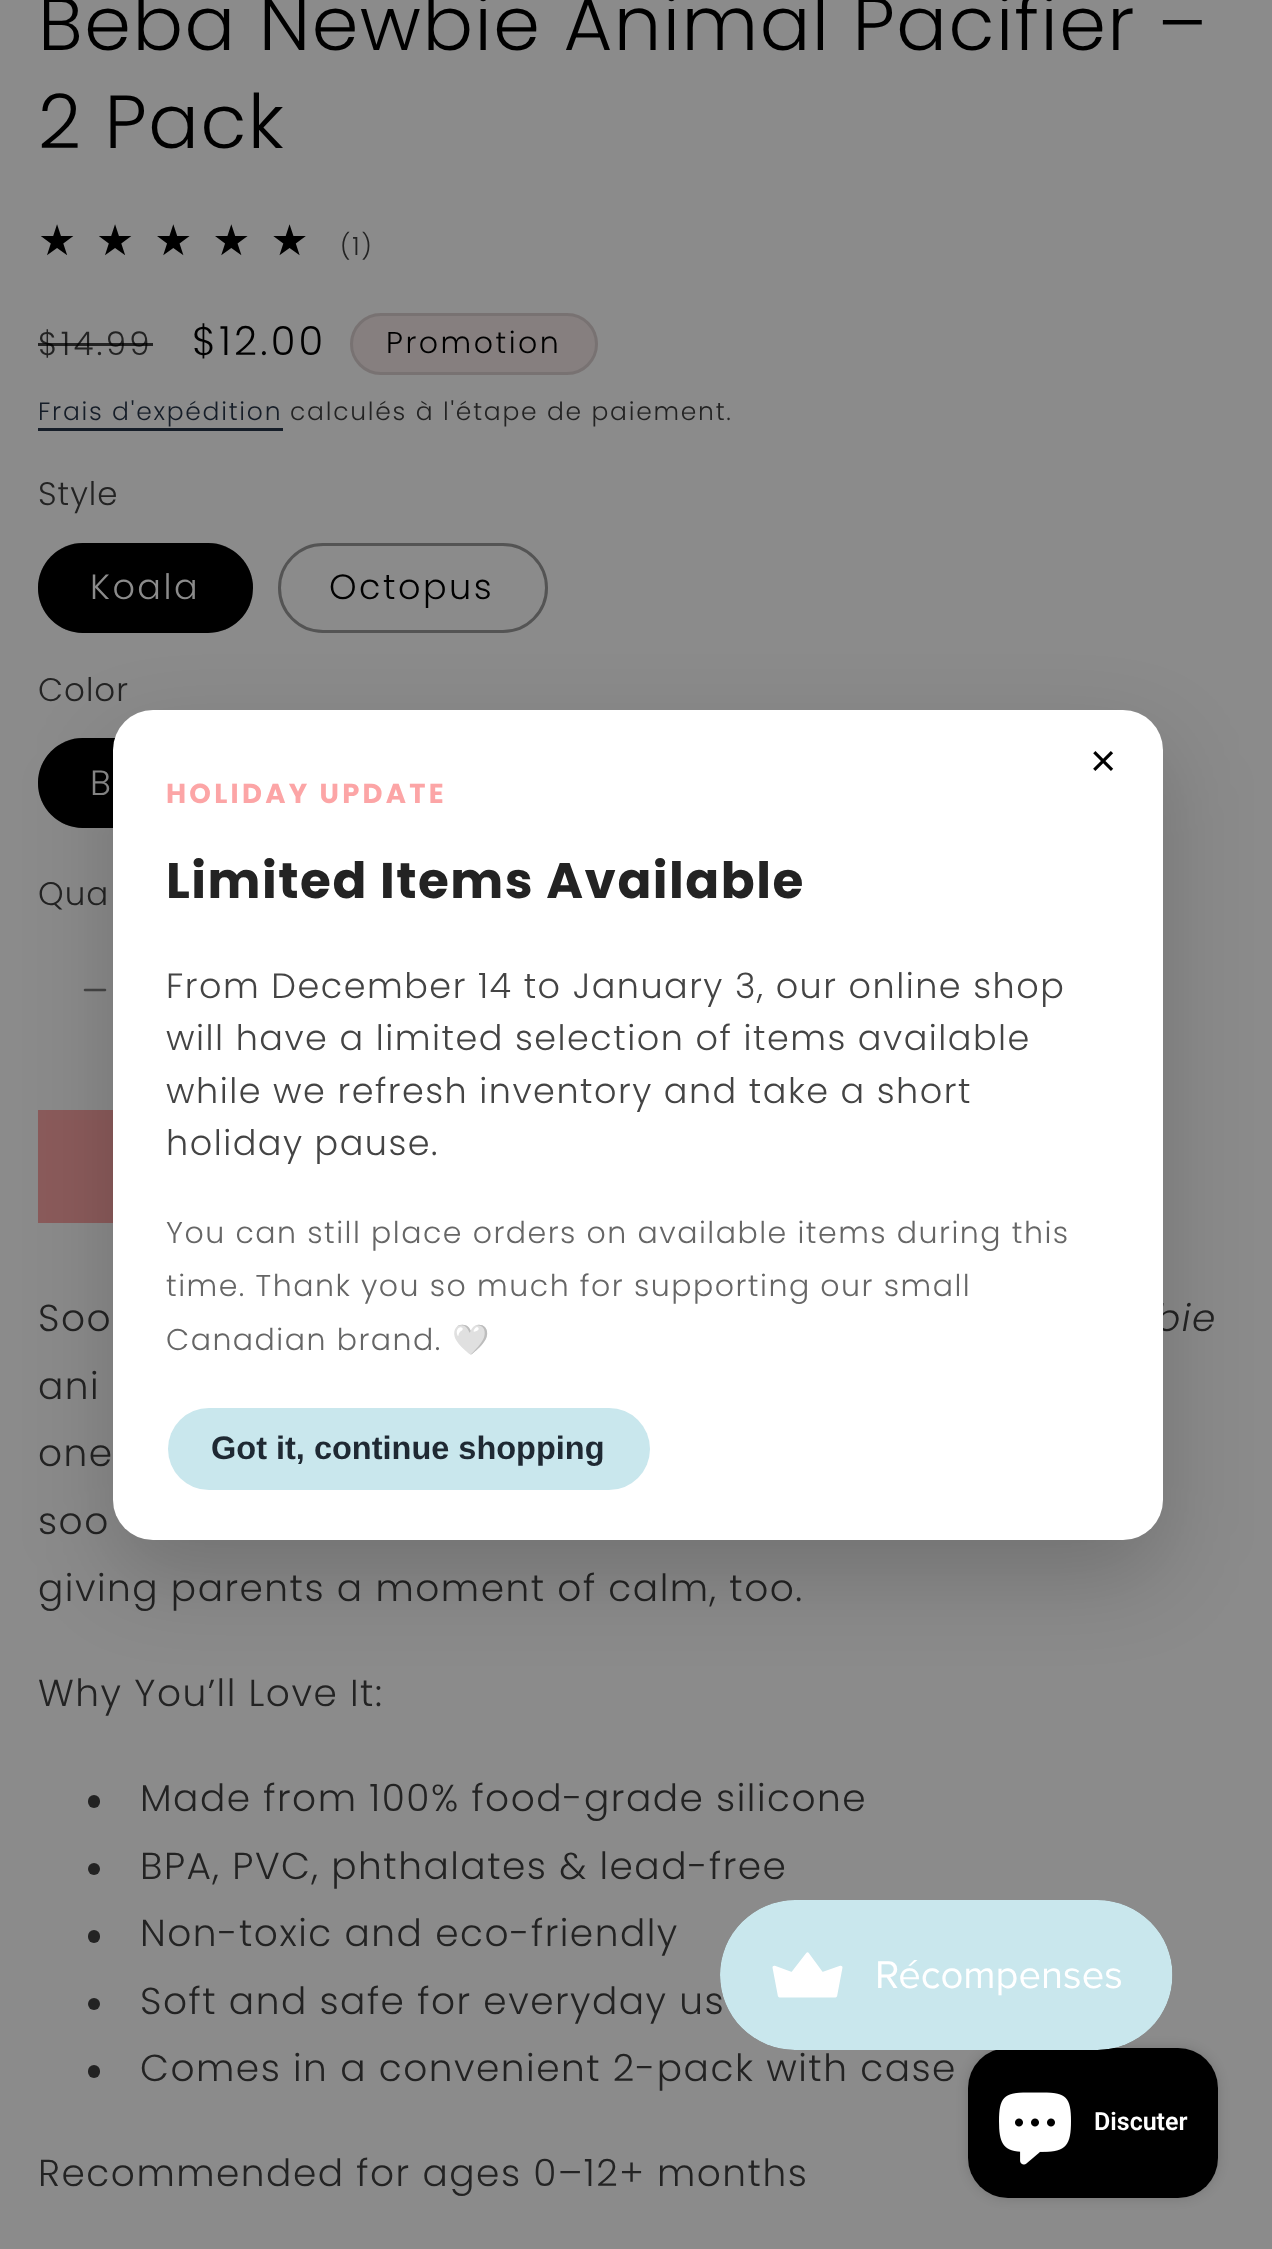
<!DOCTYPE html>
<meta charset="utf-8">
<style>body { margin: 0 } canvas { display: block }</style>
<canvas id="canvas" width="1272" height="2249"></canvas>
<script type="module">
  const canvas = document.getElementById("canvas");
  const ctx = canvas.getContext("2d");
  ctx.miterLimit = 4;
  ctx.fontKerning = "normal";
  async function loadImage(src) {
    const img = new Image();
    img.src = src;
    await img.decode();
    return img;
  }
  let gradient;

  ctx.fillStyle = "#8b8b8b";
  ctx.fillRect(0, 0, 1272, 2249);
  ctx.letterSpacing = "1.5px";
  ctx.font = "300 75px Poppins";
  ctx.fillStyle = "#000000";
  ctx.fillText("Beba Newbie Animal Pacifier –", 38, 50);
  ctx.fillText("2 Pack", 38, 148);
  ctx.letterSpacing = "20px";
  ctx.font = "42.5px DejaVu Sans";
  gradient = ctx.createLinearGradient(38, 241, 328, 241);
  gradient.addColorStop(1, "#000000");
  gradient.addColorStop(1, "#767676");
  ctx.fillStyle = gradient;
  ctx.fillText("★★★★★", 38, 255);
  ctx.letterSpacing = "1.75px";
  ctx.font = "300 25px Poppins";
  ctx.fillStyle = "#232323";
  ctx.fillText("(1)", 340, 255);
  ctx.letterSpacing = "3.25px";
  ctx.font = "300 32.5px Poppins";
  ctx.fillText("$14.99", 38, 355);
  ctx.fillStyle = "rgba(0, 0, 0, 0.75)";
  ctx.fillRect(38, 343, 115, 3);
  ctx.font = "300 40px Poppins";
  ctx.fillStyle = "#000000";
  ctx.fillText("$12.00", 192, 355);
  ctx.fillStyle = "#867f7f";
  ctx.beginPath();
  ctx.roundRect(350, 313, 248, 62, 31);
  ctx.fill();
  ctx.beginPath();
  ctx.roundRect(351.5, 314.5, 245, 59, 29.5);
  ctx.strokeStyle = "rgba(0, 0, 0, 0.1)";
  ctx.lineWidth = 3;
  ctx.stroke();
  ctx.letterSpacing = "2.5px";
  ctx.font = "300 30px Poppins";
  ctx.fillStyle = "#000000";
  ctx.fillText("Promotion", 386, 353);
  ctx.letterSpacing = "1.75px";
  ctx.font = "300 25px Poppins";
  ctx.fillStyle = "#151d28";
  ctx.fillText("Frais d'expédition", 38, 420);
  ctx.fillRect(38, 428, 245, 3);
  ctx.fillStyle = "#232323";
  ctx.fillText("calculés à l'étape de paiement.", 290, 420);
  ctx.letterSpacing = "1px";
  ctx.font = "300 32.5px Poppins";
  ctx.fillText("Style", 38, 505);
  ctx.fillStyle = "#000000";
  ctx.beginPath();
  ctx.roundRect(38, 543, 215, 90, 45);
  ctx.fill();
  ctx.beginPath();
  ctx.roundRect(39.5, 544.5, 212, 87, 43.5);
  ctx.strokeStyle = "rgba(0, 0, 0, 0.4)";
  ctx.stroke();
  ctx.letterSpacing = "2.5px";
  ctx.font = "300 35px Poppins";
  ctx.fillStyle = "#8b8b8b";
  ctx.fillText("Koala", 90, 599);
  ctx.beginPath();
  ctx.roundRect(279.5, 544.5, 267, 87, 43.5);
  ctx.strokeStyle = "#545454";
  ctx.stroke();
  ctx.fillStyle = "#000000";
  ctx.fillText("Octopus", 329, 599);
  ctx.letterSpacing = "1px";
  ctx.font = "300 32.5px Poppins";
  ctx.fillStyle = "#232323";
  ctx.fillText("Color", 38, 701);
  ctx.fillStyle = "#000000";
  ctx.beginPath();
  ctx.roundRect(38, 738, 187, 90, 45);
  ctx.fill();
  ctx.beginPath();
  ctx.roundRect(39.5, 739.5, 184, 87, 43.5);
  ctx.strokeStyle = "rgba(0, 0, 0, 0.4)";
  ctx.stroke();
  ctx.letterSpacing = "2.5px";
  ctx.font = "300 35px Poppins";
  ctx.fillStyle = "#8b8b8b";
  ctx.fillText("B", 90, 795);
  ctx.letterSpacing = "1px";
  ctx.font = "300 32.5px Poppins";
  ctx.fillStyle = "#232323";
  ctx.fillText("Qua", 38, 905);
  ctx.drawImage(await loadImage("img1.png"), 83, 988, 24, 4);
  ctx.fillStyle = "#8b5b5b";
  ctx.fillRect(38, 1110, 75, 113);
  ctx.letterSpacing = "1.5px";
  ctx.font = "300 37.5px Poppins";
  ctx.fillStyle = "#232323";
  ctx.fillText("Soo", 38, 1331);
  ctx.font = "italic 300 37.5px Poppins";
  ctx.fillText("bie", 1155, 1331);
  ctx.font = "300 37.5px Poppins";
  ctx.fillText("ani", 38, 1399);
  ctx.fillText("one", 38, 1466);
  ctx.fillText("soo", 38, 1534);
  ctx.fillText("giving parents a moment of calm, too.", 38, 1601);
  ctx.fillText("Why You’ll Love It:", 38, 1706);
  ctx.beginPath();
  ctx.roundRect(88, 1795, 12, 13, 6);
  ctx.fill();
  ctx.fillText("Made from 100% food-grade silicone", 140, 1811);
  ctx.beginPath();
  ctx.arc(94, 1869, 6, 0, Math.PI * 2);
  ctx.fill();
  ctx.fillText("BPA, PVC, phthalates & lead-free", 140, 1879);
  ctx.beginPath();
  ctx.roundRect(88, 1930, 12, 13, 6);
  ctx.fill();
  ctx.fillText("Non-toxic and eco-friendly", 140, 1946);
  ctx.beginPath();
  ctx.arc(94, 2004, 6, 0, Math.PI * 2);
  ctx.fill();
  ctx.fillText("Soft and safe for everyday us", 140, 2014);
  ctx.beginPath();
  ctx.roundRect(88, 2065, 12, 13, 6);
  ctx.fill();
  ctx.fillText("Comes in a convenient 2-pack with case", 140, 2081);
  ctx.fillText("Recommended for ages 0–12+ months", 38, 2186);
  ctx.fillStyle = "rgba(0, 0, 0, 0.18)";
  ctx.filter = "blur(44px)";
  ctx.beginPath();
  ctx.roundRect(113, 745, 1050, 830, 40);
  ctx.fill();
  ctx.filter = "none";
  ctx.fillStyle = "#ffffff";
  ctx.beginPath();
  ctx.roundRect(113, 710, 1050, 830, 40);
  ctx.fill();
  ctx.letterSpacing = "0px";
  ctx.font = "45px Liberation Sans";
  ctx.fillStyle = "#000000";
  ctx.fillText("×", 1090, 776);
  ctx.letterSpacing = "3.25px";
  ctx.font = "bold 27.5px Poppins";
  ctx.fillStyle = "#fca5a6";
  ctx.fillText("HOLIDAY UPDATE", 166, 803);
  ctx.letterSpacing = "1.5px";
  ctx.font = "bold 50px Poppins";
  ctx.fillStyle = "#232323";
  ctx.fillText("Limited Items Available", 166, 898);
  ctx.font = "300 35px Poppins";
  ctx.fillStyle = "#444444";
  ctx.fillText("From December 14 to January 3, our online shop", 166, 998);
  ctx.fillText("will have a limited selection of items available", 166, 1050);
  ctx.fillText("while we refresh inventory and take a short", 166, 1103);
  ctx.fillText("holiday pause.", 166, 1155);
  ctx.font = "300 30px Poppins";
  ctx.fillStyle = "#666666";
  ctx.fillText("You can still place orders on available items during this", 166, 1243);
  ctx.fillText("time. Thank you so much for supporting our small", 166, 1296);
  ctx.fillText("Canadian brand.", 166, 1350);
  ctx.font = "30px Noto Color Emoji";
  ctx.fillText("🤍", 452, 1350);
  ctx.fillStyle = "#c9e7ed";
  ctx.beginPath();
  ctx.roundRect(168, 1408, 482, 82, 41);
  ctx.fill();
  ctx.letterSpacing = "0px";
  ctx.font = "bold 32.5px Liberation Sans";
  ctx.fillStyle = "#1f2933";
  ctx.fillText("Got it, continue shopping", 211, 1459);
  ctx.fillStyle = "rgba(0, 0, 0, 0.15)";
  ctx.filter = "blur(6px)";
  ctx.beginPath();
  ctx.roundRect(968, 2048, 250, 150, 40);
  ctx.fill();
  ctx.filter = "none";
  ctx.fillStyle = "#000000";
  ctx.beginPath();
  ctx.roundRect(968, 2048, 250, 150, 40);
  ctx.fill();
  ctx.drawImage(await loadImage("img2.png"), 720, 1900, 453, 150);
  ctx.drawImage(await loadImage("img3.png"), 999, 2092, 72, 73);
  ctx.font = "600 25px Roboto";
  ctx.fillStyle = "#ffffff";
  ctx.fillText("Discuter", 1094, 2130);
</script>
